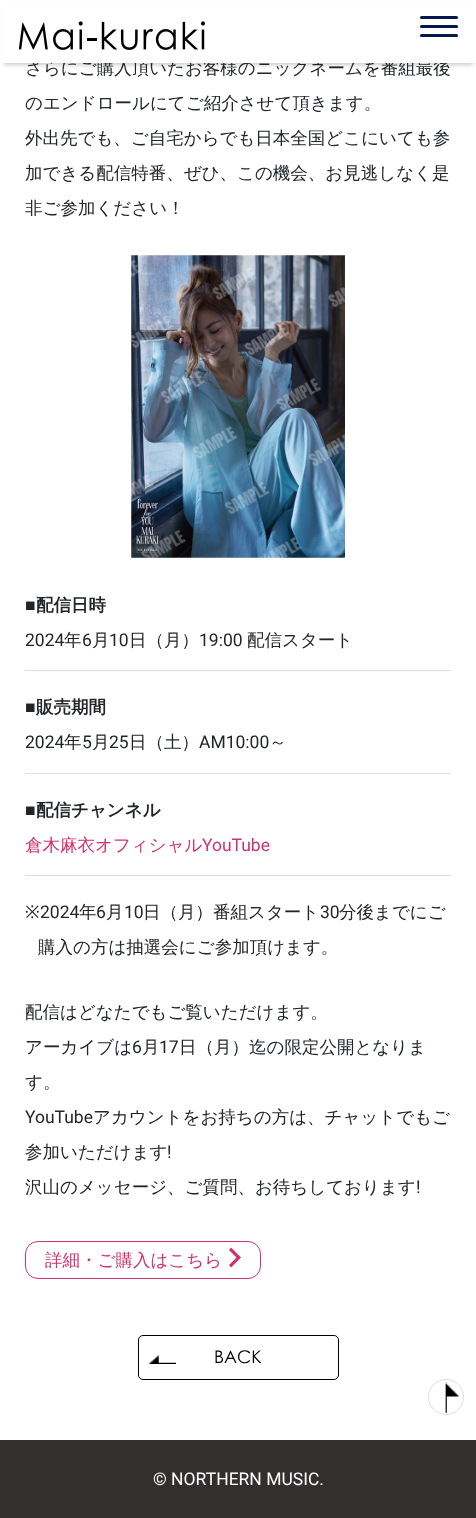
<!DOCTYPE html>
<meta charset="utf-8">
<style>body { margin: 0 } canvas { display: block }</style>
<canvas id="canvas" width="476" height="1518"></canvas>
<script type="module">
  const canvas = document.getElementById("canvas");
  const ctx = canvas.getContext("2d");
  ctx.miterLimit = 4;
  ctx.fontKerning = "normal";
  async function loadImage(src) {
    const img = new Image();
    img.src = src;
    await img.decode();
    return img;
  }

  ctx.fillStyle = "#ffffff";
  ctx.fillRect(0, 0, 476, 1518);
  ctx.fillStyle = "rgba(0, 0, 0, 0.2)";
  ctx.filter = "blur(2px)";
  ctx.beginPath();
  ctx.rect(4, 10, 469, 55);
  ctx.fill();
  ctx.filter = "none";
  ctx.font = "500 17.5px WenQuanYi Zen Hei";
  ctx.fillStyle = "#212529";
  ctx.fillText("さらにご購入頂いたお客様のニックネームを番組最後", 25, 74);
  ctx.fillStyle = "#ffffff";
  ctx.fillRect(1, 7, 475, 56);
  ctx.drawImage(await loadImage("img1.png"), 19, 21, 186, 29);
  ctx.fillStyle = "#05174d";
  ctx.beginPath();
  ctx.roundRect(420, 16, 38, 3, 1.5);
  ctx.fill();
  ctx.beginPath();
  ctx.roundRect(420, 25, 38, 3, 1.5);
  ctx.fill();
  ctx.beginPath();
  ctx.roundRect(420, 34, 38, 3, 1.5);
  ctx.fill();
  ctx.fillStyle = "#212529";
  ctx.fillText("のエンドロールにてご紹介させて頂きます。", 25, 109);
  ctx.fillText("外出先でも、ご自宅からでも日本全国どこにいても参", 25, 144);
  ctx.fillText("加できる配信特番、ぜひ、この機会、お見逃しなく是", 25, 179);
  ctx.fillText("非ご参加ください！", 25, 214);
  ctx.drawImage(await loadImage("img2.png"), 131, 255, 214, 303);
  ctx.font = "bold 17.5px Liberation Sans";
  ctx.fillText("■", 25, 611);
  ctx.font = "bold 17.5px WenQuanYi Zen Hei";
  ctx.fillText("配信日時", 36, 611);
  ctx.fillStyle = "#dedede";
  ctx.fillRect(25, 670, 426, 1);
  ctx.font = "17.5px Roboto";
  ctx.fillStyle = "#212529";
  ctx.fillText("2024", 25, 646);
  ctx.font = "500 17.5px WenQuanYi Zen Hei";
  ctx.fillText("年", 64, 646);
  ctx.font = "17.5px Roboto";
  ctx.fillText("6", 82, 646);
  ctx.font = "500 17.5px WenQuanYi Zen Hei";
  ctx.fillText("月", 92, 646);
  ctx.font = "17.5px Roboto";
  ctx.fillText("10", 109, 646);
  ctx.font = "500 17.5px WenQuanYi Zen Hei";
  ctx.fillText("日（月）", 129, 646);
  ctx.font = "17.5px Roboto";
  ctx.fillText("19:00", 199, 646);
  ctx.font = "500 17.5px WenQuanYi Zen Hei";
  ctx.fillText("配信スタート", 247, 646);
  ctx.font = "bold 17.5px Liberation Sans";
  ctx.fillText("■", 25, 713);
  ctx.font = "bold 17.5px WenQuanYi Zen Hei";
  ctx.fillText("販売期間", 36, 713);
  ctx.fillStyle = "#dedede";
  ctx.fillRect(25, 773, 426, 1);
  ctx.font = "17.5px Roboto";
  ctx.fillStyle = "#212529";
  ctx.fillText("2024", 25, 748);
  ctx.font = "500 17.5px WenQuanYi Zen Hei";
  ctx.fillText("年", 64, 748);
  ctx.font = "17.5px Roboto";
  ctx.fillText("5", 82, 748);
  ctx.font = "500 17.5px WenQuanYi Zen Hei";
  ctx.fillText("月", 92, 748);
  ctx.font = "17.5px Roboto";
  ctx.fillText("25", 109, 748);
  ctx.font = "500 17.5px WenQuanYi Zen Hei";
  ctx.fillText("日（土）", 129, 748);
  ctx.font = "17.5px Roboto";
  ctx.fillText("AM10:00", 199, 748);
  ctx.font = "500 17.5px WenQuanYi Zen Hei";
  ctx.fillText("～", 269, 748);
  ctx.font = "bold 17.5px Liberation Sans";
  ctx.fillText("■", 25, 816);
  ctx.font = "bold 17.5px WenQuanYi Zen Hei";
  ctx.fillText("配信チャンネル", 36, 816);
  ctx.fillStyle = "#dedede";
  ctx.fillRect(25, 875, 426, 1);
  ctx.font = "500 17.5px WenQuanYi Zen Hei";
  ctx.fillStyle = "#d1316d";
  ctx.fillText("倉木麻衣オフィシャル", 25, 851);
  ctx.font = "17.5px Roboto";
  ctx.fillText("YouTube", 202, 851);
  ctx.font = "17.5px Noto Sans";
  ctx.fillStyle = "#212529";
  ctx.fillText("※", 25, 918);
  ctx.font = "17.5px Roboto";
  ctx.fillText("2024", 40, 918);
  ctx.font = "500 17.5px WenQuanYi Zen Hei";
  ctx.fillText("年", 79, 918);
  ctx.font = "17.5px Roboto";
  ctx.fillText("6", 96, 918);
  ctx.font = "500 17.5px WenQuanYi Zen Hei";
  ctx.fillText("月", 106, 918);
  ctx.font = "17.5px Roboto";
  ctx.fillText("10", 124, 918);
  ctx.font = "500 17.5px WenQuanYi Zen Hei";
  ctx.fillText("日（月）番組スタート", 143, 918);
  ctx.font = "17.5px Roboto";
  ctx.fillText("30", 320, 918);
  ctx.font = "500 17.5px WenQuanYi Zen Hei";
  ctx.fillText("分後までにご", 339, 918);
  ctx.fillText("購入の方は抽選会にご参加頂けます。", 38, 953);
  ctx.fillText("配信はどなたでもご覧いただけます。", 25, 1018);
  ctx.fillText("アーカイブは", 25, 1053);
  ctx.font = "17.5px Roboto";
  ctx.fillText("6", 132, 1053);
  ctx.font = "500 17.5px WenQuanYi Zen Hei";
  ctx.fillText("月", 142, 1053);
  ctx.font = "17.5px Roboto";
  ctx.fillText("17", 159, 1053);
  ctx.font = "500 17.5px WenQuanYi Zen Hei";
  ctx.fillText("日（月）迄の限定公開となりま", 179, 1053);
  ctx.fillText("す。", 25, 1088);
  ctx.font = "17.5px Roboto";
  ctx.fillText("YouTube", 25, 1123);
  ctx.font = "500 17.5px WenQuanYi Zen Hei";
  ctx.fillText("アカウントをお持ちの方は、チャットでもご", 93, 1123);
  ctx.fillText("参加いただけます", 25, 1158);
  ctx.font = "17.5px Roboto";
  ctx.fillText("!", 167, 1158);
  ctx.font = "500 17.5px WenQuanYi Zen Hei";
  ctx.fillText("沢山のメッセージ、ご質問、お待ちしております", 25, 1193);
  ctx.font = "17.5px Roboto";
  ctx.fillText("!", 416, 1193);
  ctx.beginPath();
  ctx.roundRect(25.5, 1241.5, 235, 37, 12.5);
  ctx.strokeStyle = "#d1316d";
  ctx.stroke();
  ctx.font = "500 17.5px WenQuanYi Zen Hei";
  ctx.fillStyle = "#d1316d";
  ctx.fillText("詳細・ご購入はこちら", 45, 1266);
  ctx.beginPath();
  ctx.moveTo(231, 1267.5);
  ctx.lineTo(229, 1265);
  ctx.lineTo(236.5, 1257.5);
  ctx.lineTo(229, 1250);
  ctx.lineTo(231, 1247.5);
  ctx.lineTo(241, 1257.5);
  ctx.closePath();
  ctx.fill();
  ctx.beginPath();
  ctx.roundRect(138.5, 1335.5, 200, 44, 4.5);
  ctx.strokeStyle = "#000000";
  ctx.stroke();
  ctx.drawImage(await loadImage("img3.png"), 148, 1355, 28, 9);
  ctx.font = "17.5px Century Gothic";
  ctx.fillStyle = "#000000";
  ctx.fillText("BACK", 214, 1363);
  ctx.beginPath();
  ctx.arc(446, 1397, 17.5, 0, Math.PI * 2);
  ctx.strokeStyle = "#dedede";
  ctx.stroke();
  ctx.drawImage(await loadImage("img4.png"), 445, 1382, 15, 31);
  ctx.fillStyle = "#322f2f";
  ctx.fillRect(0, 1440, 476, 78);
  ctx.font = "17.5px Roboto";
  ctx.fillStyle = "#ffffff";
  ctx.fillText("© NORTHERN MUSIC.", 153, 1485);
</script>
